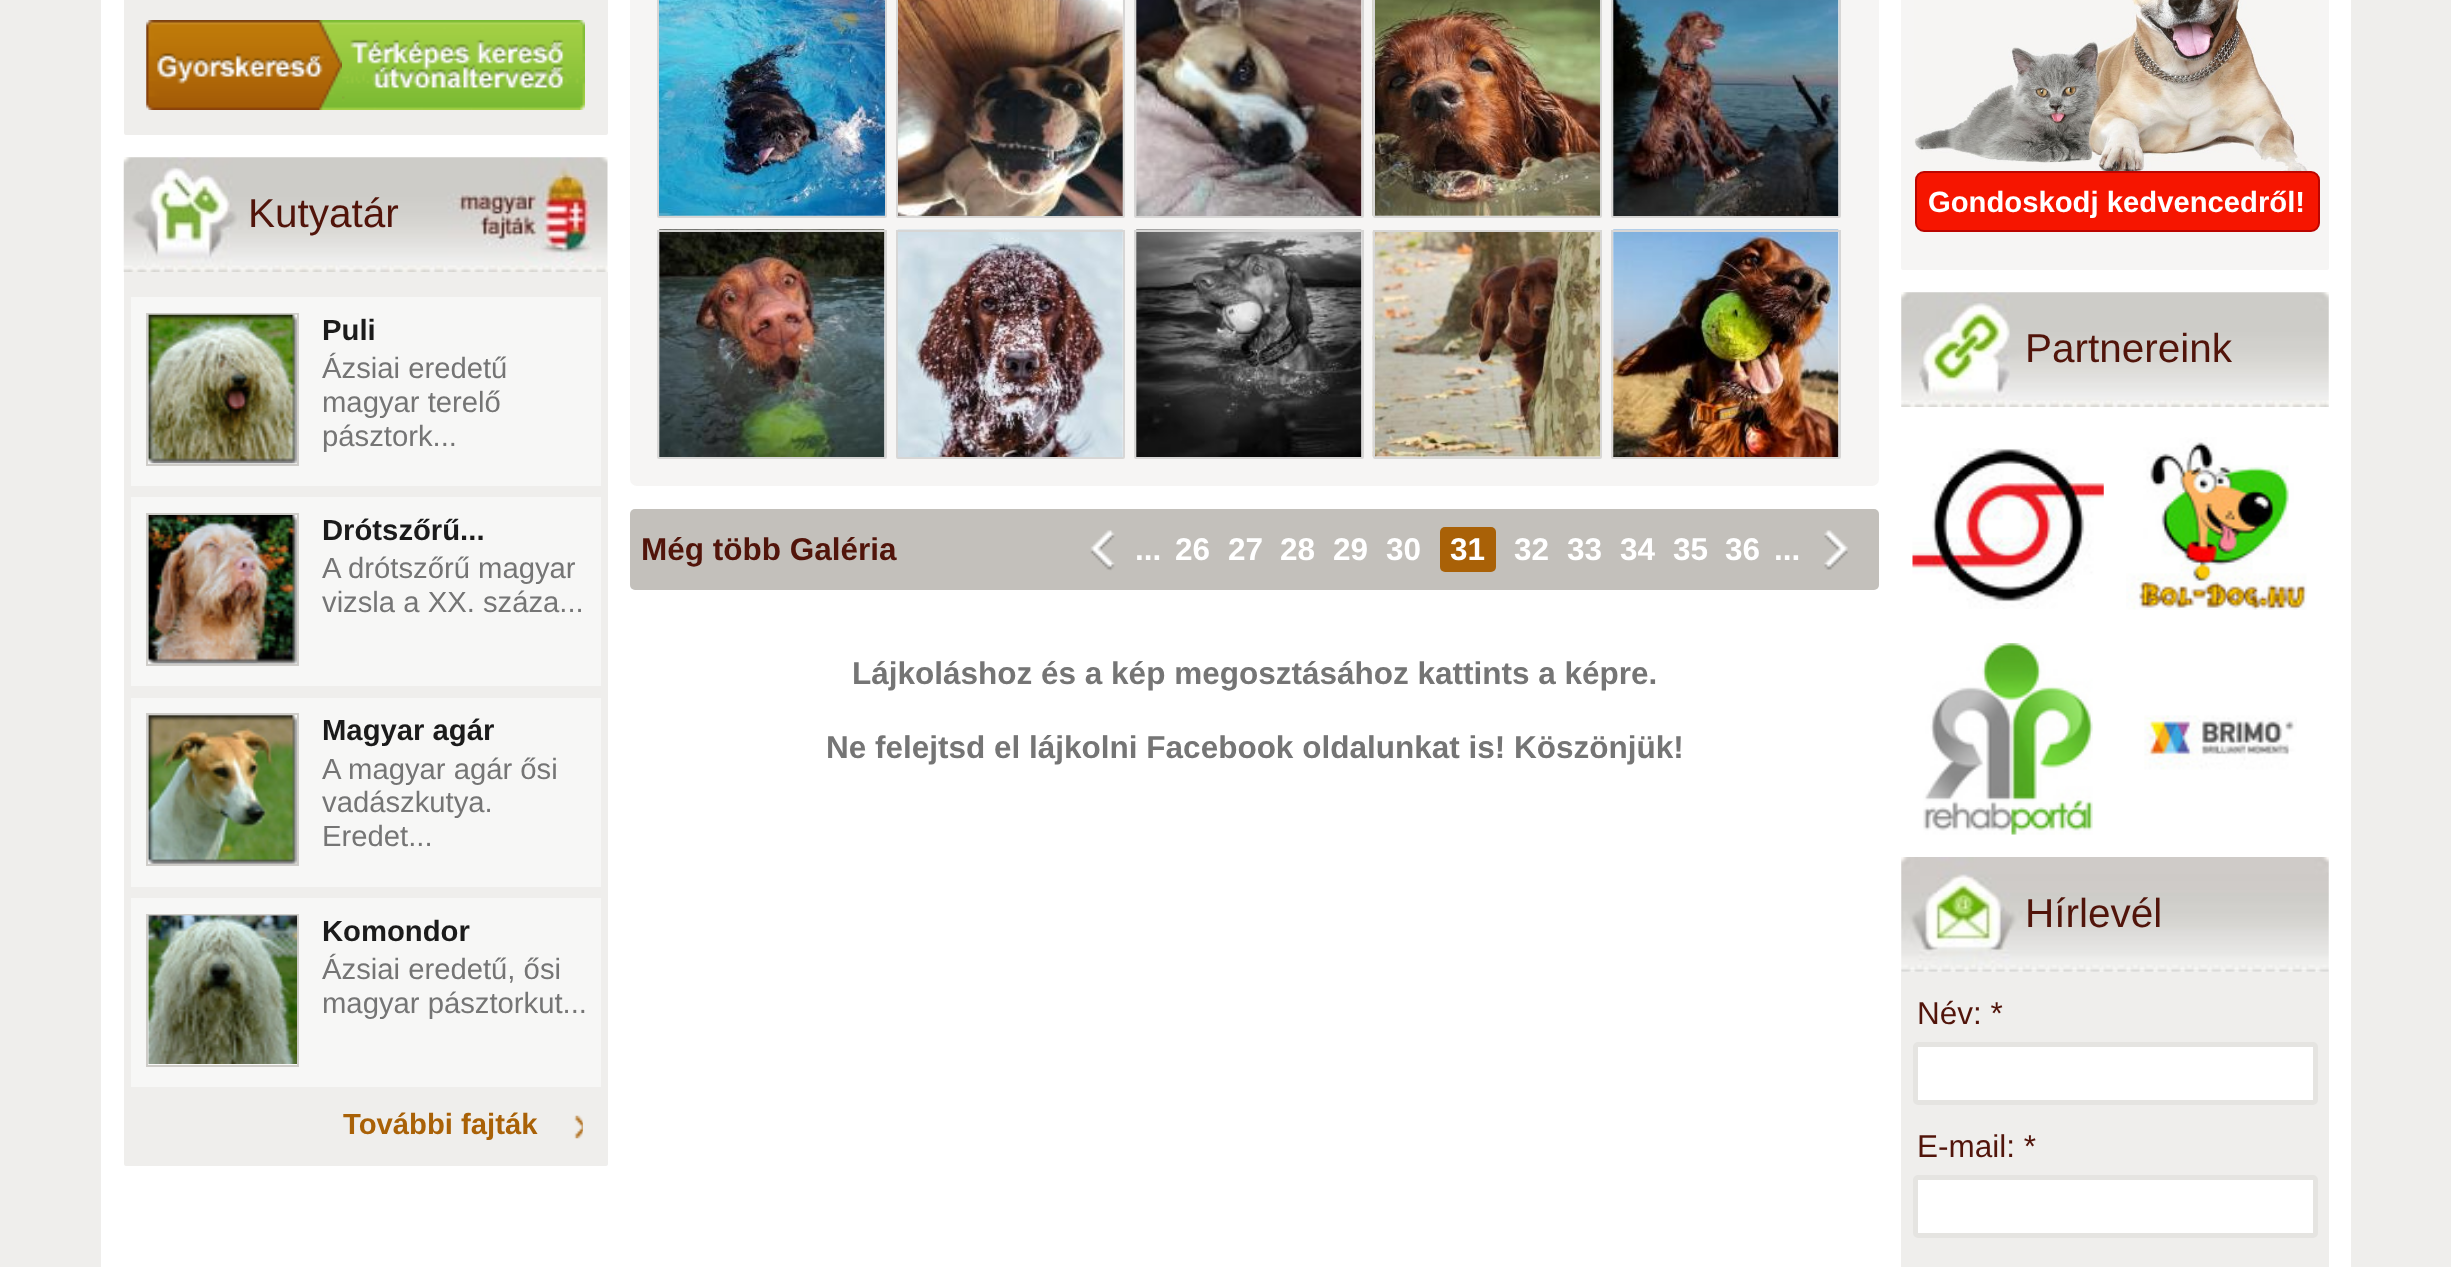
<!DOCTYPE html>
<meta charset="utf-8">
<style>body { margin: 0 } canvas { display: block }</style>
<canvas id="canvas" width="2451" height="1267"></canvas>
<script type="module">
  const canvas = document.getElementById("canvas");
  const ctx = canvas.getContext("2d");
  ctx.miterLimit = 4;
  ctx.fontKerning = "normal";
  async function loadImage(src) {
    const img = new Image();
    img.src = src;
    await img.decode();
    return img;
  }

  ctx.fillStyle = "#efeeec";
  ctx.fillRect(0, 0, 2451, 1267);
  ctx.fillStyle = "#ffffff";
  ctx.fillRect(101, 0, 2250, 1267);
  ctx.fillStyle = "#efeeec";
  ctx.beginPath();
  ctx.moveTo(125, -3);
  ctx.lineTo(607, -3);
  ctx.lineTo(607, 133);
  ctx.bezierCurveTo(607, 133.5, 606.5, 134, 606, 134);
  ctx.lineTo(126, 134);
  ctx.bezierCurveTo(125.5, 134, 125, 133.5, 125, 133);
  ctx.closePath();
  ctx.fill();
  ctx.strokeStyle = "#efeeec";
  ctx.lineWidth = 2;
  ctx.stroke();
  ctx.drawImage(await loadImage("img1.png"), 146, 20, 196, 90);
  ctx.drawImage(await loadImage("img2.png"), 342, 20, 243, 90);
  ctx.drawImage(await loadImage("img3.png"), 123, 157, 485, 115);
  ctx.font = "40.5px Liberation Sans";
  ctx.fillStyle = "#51140a";
  ctx.fillText("Kutyatár", 248, 227);
  ctx.fillStyle = "#efeeec";
  ctx.beginPath();
  ctx.roundRect(125, 273, 482, 892, [0, 0, 1, 1]);
  ctx.fill();
  ctx.stroke();
  ctx.fillStyle = "#f7f7f6";
  ctx.fillRect(131, 297, 470, 189);
  ctx.strokeStyle = "#ceccc8";
  ctx.strokeRect(147, 314, 151, 151);
  ctx.drawImage(await loadImage("img4.png"), 148, 314, 149, 150);
  ctx.font = "bold 29.25px Liberation Sans";
  ctx.fillStyle = "#1b1b1b";
  ctx.fillText("Puli", 322, 340);
  ctx.font = "29.25px Liberation Sans";
  ctx.fillStyle = "#757575";
  ctx.fillText("Ázsiai eredetű", 322, 378);
  ctx.fillText("magyar terelő", 322, 412);
  ctx.fillText("pásztork...", 322, 446);
  ctx.fillStyle = "#f7f7f6";
  ctx.fillRect(131, 497, 470, 189);
  ctx.strokeRect(147, 514, 151, 151);
  ctx.drawImage(await loadImage("img5.png"), 148, 515, 149, 149);
  ctx.font = "bold 29.25px Liberation Sans";
  ctx.fillStyle = "#1b1b1b";
  ctx.fillText("Drótszőrű...", 322, 540);
  ctx.font = "29.25px Liberation Sans";
  ctx.fillStyle = "#757575";
  ctx.fillText("A drótszőrű magyar", 322, 578);
  ctx.fillText("vizsla a XX. száza...", 322, 612);
  ctx.fillStyle = "#f7f7f6";
  ctx.fillRect(131, 698, 470, 189);
  ctx.strokeRect(147, 714, 151, 151);
  ctx.drawImage(await loadImage("img6.png"), 148, 715, 149, 149);
  ctx.font = "bold 29.25px Liberation Sans";
  ctx.fillStyle = "#1b1b1b";
  ctx.fillText("Magyar agár", 322, 740);
  ctx.font = "29.25px Liberation Sans";
  ctx.fillStyle = "#757575";
  ctx.fillText("A magyar agár ősi", 322, 779);
  ctx.fillText("vadászkutya.", 322, 812);
  ctx.fillText("Eredet...", 322, 846);
  ctx.fillStyle = "#f7f7f6";
  ctx.fillRect(131, 898, 470, 189);
  ctx.strokeRect(147, 915, 151, 151);
  ctx.drawImage(await loadImage("img7.png"), 148, 915, 149, 149);
  ctx.font = "bold 29.25px Liberation Sans";
  ctx.fillStyle = "#1b1b1b";
  ctx.fillText("Komondor", 322, 941);
  ctx.font = "29.25px Liberation Sans";
  ctx.fillStyle = "#757575";
  ctx.fillText("Ázsiai eredetű, ősi", 322, 979);
  ctx.fillText("magyar pásztorkut...", 322, 1013);
  ctx.drawImage(await loadImage("img8.png"), 574, 1115, 9, 24);
  ctx.font = "bold 29.25px Liberation Sans";
  ctx.fillStyle = "#a96107";
  ctx.fillText("További fajták", 343, 1134);
  ctx.fillStyle = "#f6f5f4";
  ctx.beginPath();
  ctx.roundRect(630, -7, 1249, 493, 7);
  ctx.fill();
  ctx.drawImage(await loadImage("img9.png"), 659, 0, 226, 216);
  ctx.beginPath();
  ctx.moveTo(658, -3);
  ctx.lineTo(886, -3);
  ctx.lineTo(886, 216);
  ctx.bezierCurveTo(886, 216.5, 885.5, 217, 885, 217);
  ctx.lineTo(659, 217);
  ctx.bezierCurveTo(658.5, 217, 658, 216.5, 658, 216);
  ctx.closePath();
  ctx.strokeStyle = "#d7d6d5";
  ctx.stroke();
  ctx.drawImage(await loadImage("img10.png"), 897, 0, 226, 218);
  ctx.beginPath();
  ctx.moveTo(897, -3);
  ctx.lineTo(1124, -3);
  ctx.lineTo(1124, 216);
  ctx.bezierCurveTo(1124, 216.5, 1123.5, 217, 1123, 217);
  ctx.lineTo(898, 217);
  ctx.bezierCurveTo(897.5, 217, 897, 216.5, 897, 216);
  ctx.closePath();
  ctx.stroke();
  ctx.drawImage(await loadImage("img11.png"), 1136, 0, 226, 216);
  ctx.beginPath();
  ctx.moveTo(1135, -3);
  ctx.lineTo(1363, -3);
  ctx.lineTo(1363, 216);
  ctx.bezierCurveTo(1363, 216.5, 1362.5, 217, 1362, 217);
  ctx.lineTo(1136, 217);
  ctx.bezierCurveTo(1135.5, 217, 1135, 216.5, 1135, 216);
  ctx.closePath();
  ctx.stroke();
  ctx.drawImage(await loadImage("img12.png"), 1372, 0, 228, 216);
  ctx.beginPath();
  ctx.moveTo(1374, -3);
  ctx.lineTo(1601, -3);
  ctx.lineTo(1601, 216);
  ctx.bezierCurveTo(1601, 216.5, 1600.5, 217, 1600, 217);
  ctx.lineTo(1375, 217);
  ctx.bezierCurveTo(1374.5, 217, 1374, 216.5, 1374, 216);
  ctx.closePath();
  ctx.stroke();
  ctx.drawImage(await loadImage("img13.png"), 1613, 0, 226, 216);
  ctx.beginPath();
  ctx.moveTo(1612, -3);
  ctx.lineTo(1840, -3);
  ctx.lineTo(1840, 216);
  ctx.bezierCurveTo(1840, 216.5, 1839.5, 217, 1839, 217);
  ctx.lineTo(1613, 217);
  ctx.bezierCurveTo(1612.5, 217, 1612, 216.5, 1612, 216);
  ctx.closePath();
  ctx.stroke();
  ctx.drawImage(await loadImage("img14.png"), 659, 229, 226, 228);
  ctx.beginPath();
  ctx.roundRect(658, 231, 228, 227, [0, 0, 1, 1]);
  ctx.stroke();
  ctx.drawImage(await loadImage("img15.png"), 897, 229, 226, 230);
  ctx.beginPath();
  ctx.roundRect(897, 231, 227, 227, [0, 0, 1, 1]);
  ctx.stroke();
  ctx.drawImage(await loadImage("img16.png"), 1136, 229, 226, 228);
  ctx.beginPath();
  ctx.roundRect(1135, 231, 228, 227, [0, 0, 1, 1]);
  ctx.stroke();
  ctx.drawImage(await loadImage("img17.png"), 1372, 231, 228, 226);
  ctx.beginPath();
  ctx.roundRect(1374, 231, 227, 227, [0, 0, 1, 1]);
  ctx.stroke();
  ctx.drawImage(await loadImage("img18.png"), 1613, 229, 226, 228);
  ctx.beginPath();
  ctx.roundRect(1612, 231, 228, 227, [0, 0, 1, 1]);
  ctx.stroke();
  ctx.fillStyle = "#c3c0bb";
  ctx.beginPath();
  ctx.roundRect(630, 509, 1249, 81, 5);
  ctx.fill();
  ctx.font = "bold 31.5px Liberation Sans";
  ctx.fillStyle = "#51140a";
  ctx.fillText("Még több Galéria", 641, 560);
  ctx.drawImage(await loadImage("img19.png"), 1090, 530, 25, 41);
  ctx.fillStyle = "#ffffff";
  ctx.fillText("...", 1135, 560);
  ctx.fillText("26", 1175, 560);
  ctx.fillText("27", 1228, 560);
  ctx.fillText("28", 1280, 560);
  ctx.fillText("29", 1333, 560);
  ctx.fillText("30", 1386, 560);
  ctx.fillStyle = "#a96107";
  ctx.beginPath();
  ctx.roundRect(1440, 527, 56, 45, 5);
  ctx.fill();
  ctx.fillStyle = "#ffffff";
  ctx.fillText("31", 1450, 560);
  ctx.fillText("32", 1514, 560);
  ctx.fillText("33", 1567, 560);
  ctx.fillText("34", 1620, 560);
  ctx.fillText("35", 1673, 560);
  ctx.fillText("36", 1725, 560);
  ctx.fillText("...", 1774, 560);
  ctx.drawImage(await loadImage("img20.png"), 1824, 530, 24, 40);
  ctx.fillStyle = "#757575";
  ctx.fillText("Lájkoláshoz és a kép megosztásához kattints a képre.", 852, 684);
  ctx.fillText("Ne felejtsd el lájkolni Facebook oldalunkat is! Köszönjük!", 826, 758);
  ctx.fillStyle = "#f6f5f4";
  ctx.beginPath();
  ctx.moveTo(1901, -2);
  ctx.lineTo(2329, -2);
  ctx.lineTo(2329, 268);
  ctx.bezierCurveTo(2329, 269, 2328, 270, 2327, 270);
  ctx.lineTo(1903, 270);
  ctx.bezierCurveTo(1902, 270, 1901, 269, 1901, 268);
  ctx.closePath();
  ctx.fill();
  ctx.drawImage(await loadImage("img21.png"), 1914, 0, 404, 210);
  ctx.fillStyle = "#f61500";
  ctx.beginPath();
  ctx.roundRect(1916, 172, 403, 59, 8);
  ctx.fill();
  ctx.strokeStyle = "#bb0500";
  ctx.stroke();
  ctx.font = "bold 29.25px Liberation Sans";
  ctx.fillStyle = "#ffffff";
  ctx.fillText("Gondoskodj kedvencedről!", 1928, 212);
  ctx.drawImage(await loadImage("img22.png"), 1901, 292, 428, 115);
  ctx.font = "40.5px Liberation Sans";
  ctx.fillStyle = "#51140a";
  ctx.fillText("Partnereink", 2025, 362);
  ctx.drawImage(await loadImage("img23.png"), 1912, 448, 192, 161);
  ctx.drawImage(await loadImage("img24.png"), 2126, 437, 181, 173);
  ctx.drawImage(await loadImage("img25.png"), 1923, 643, 170, 192);
  ctx.drawImage(await loadImage("img26.png"), 2144, 715, 153, 55);
  ctx.drawImage(await loadImage("img27.png"), 1901, 857, 428, 115);
  ctx.fillText("Hírlevél", 2025, 927);
  ctx.fillStyle = "#efeeec";
  ctx.fillRect(1901, 972, 428, 295);
  ctx.font = "31.5px Liberation Sans";
  ctx.fillStyle = "#51140a";
  ctx.fillText("Név: *", 1917, 1024);
  ctx.fillStyle = "#ffffff";
  ctx.beginPath();
  ctx.roundRect(1915.5, 1044.5, 400, 58, 2.5);
  ctx.fill();
  ctx.strokeStyle = "#e5e4e1";
  ctx.lineWidth = 5;
  ctx.stroke();
  ctx.fillStyle = "#51140a";
  ctx.fillText("E-mail: *", 1917, 1157);
  ctx.fillStyle = "#ffffff";
  ctx.beginPath();
  ctx.roundRect(1915.5, 1177.5, 400, 58, 2.5);
  ctx.fill();
  ctx.stroke();
</script>
